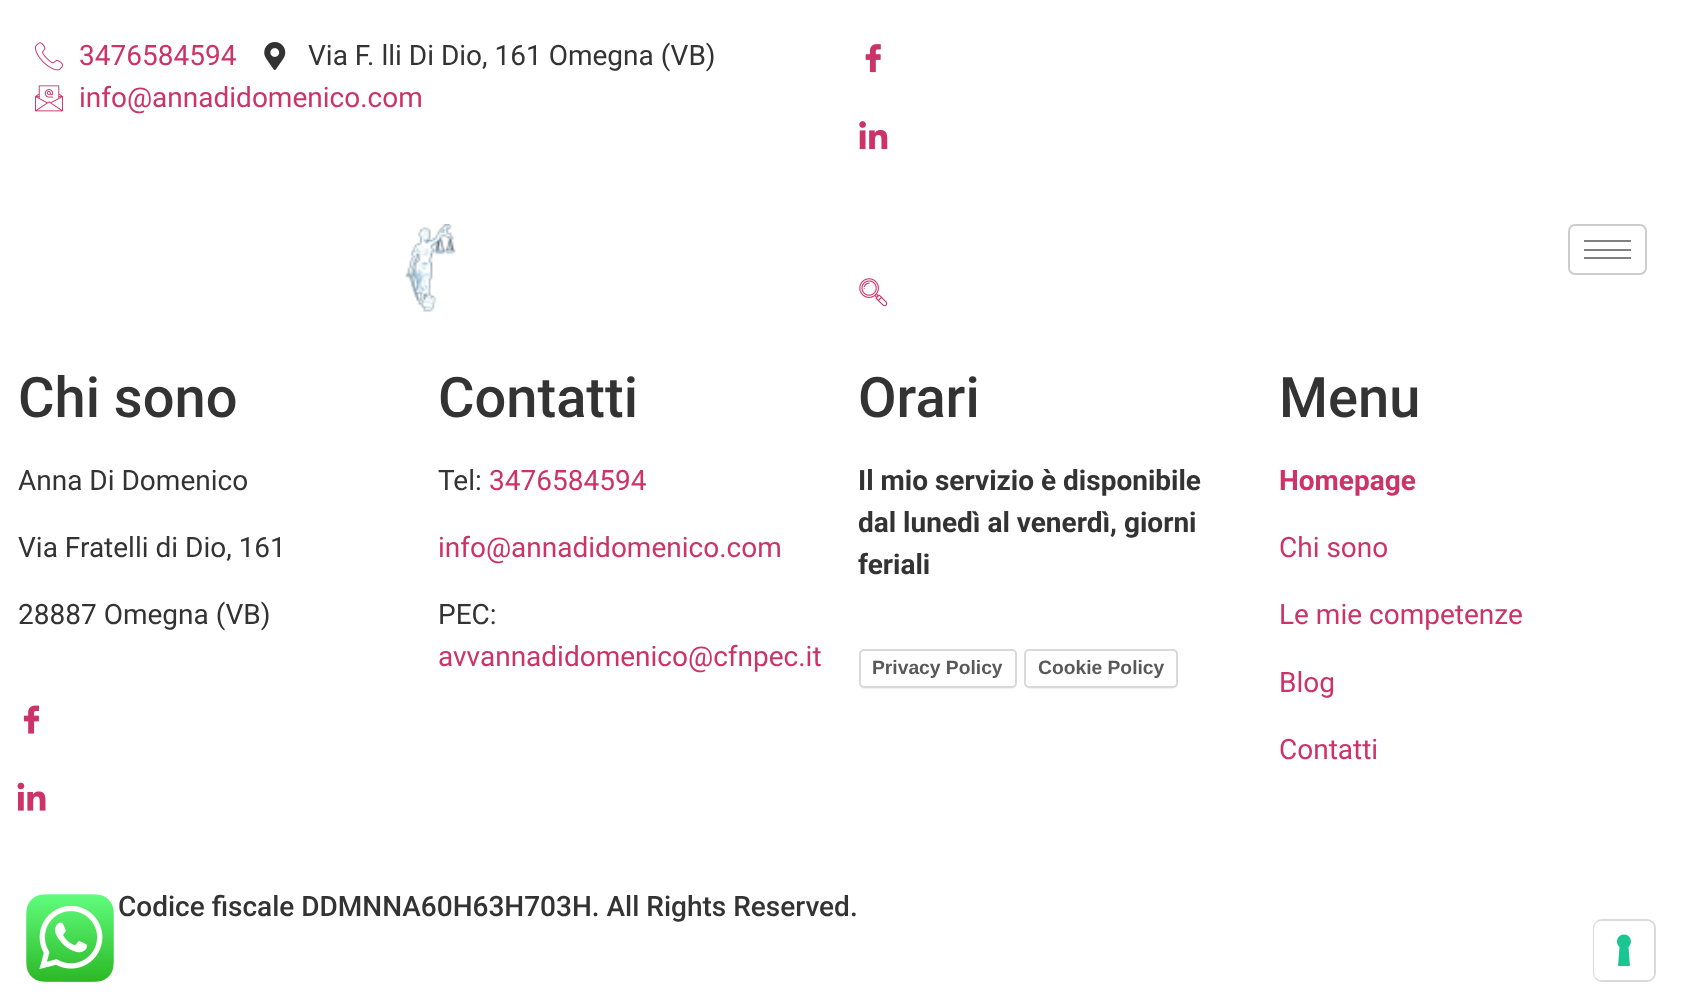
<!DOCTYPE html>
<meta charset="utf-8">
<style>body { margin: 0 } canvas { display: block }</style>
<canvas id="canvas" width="1681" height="1008"></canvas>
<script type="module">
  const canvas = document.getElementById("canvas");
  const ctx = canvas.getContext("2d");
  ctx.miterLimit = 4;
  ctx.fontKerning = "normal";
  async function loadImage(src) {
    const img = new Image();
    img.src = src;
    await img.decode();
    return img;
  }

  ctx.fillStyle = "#ffffff";
  ctx.fillRect(0, 0, 1681, 1008);
  ctx.drawImage(await loadImage("img1.png"), 35, 42, 28, 29);
  ctx.font = "28px Roboto";
  ctx.fillStyle = "#cc3366";
  ctx.fillText("3476584594", 79, 65);
  ctx.drawImage(await loadImage("img2.png"), 264, 42, 22, 28);
  ctx.fillStyle = "#333333";
  ctx.fillText("Via F. lli Di Dio, 161 Omegna (VB)", 308, 65);
  ctx.drawImage(await loadImage("img3.png"), 35, 85, 28, 27);
  ctx.fillStyle = "#cc3366";
  ctx.fillText("info@annadidomenico.com", 79, 107);
  ctx.drawImage(await loadImage("img4.png"), 865, 44, 16, 29);
  ctx.drawImage(await loadImage("img5.png"), 859, 121, 29, 29);
  ctx.drawImage(await loadImage("img6.png"), 405, 224, 51, 88);
  ctx.beginPath();
  ctx.roundRect(1569, 225, 77, 49, 6);
  ctx.strokeStyle = "#cccccc";
  ctx.lineWidth = 2;
  ctx.stroke();
  ctx.fillStyle = "#808080";
  ctx.fillRect(1584, 240, 47, 2);
  ctx.fillRect(1584, 249, 47, 2);
  ctx.fillRect(1584, 257, 47, 2);
  ctx.drawImage(await loadImage("img7.png"), 859, 278, 29, 29);
  ctx.font = "500 56px Roboto";
  ctx.fillStyle = "#333333";
  ctx.fillText("Chi sono", 18, 417);
  ctx.font = "28px Roboto";
  ctx.fillText("Anna Di Domenico", 18, 490);
  ctx.fillText("Via Fratelli di Dio, 161", 18, 557);
  ctx.fillText("28887 Omegna (VB)", 18, 624);
  ctx.drawImage(await loadImage("img8.png"), 23, 705, 17, 29);
  ctx.drawImage(await loadImage("img9.png"), 17, 782, 29, 29);
  ctx.font = "500 56px Roboto";
  ctx.fillText("Contatti", 438, 417);
  ctx.font = "28px Roboto";
  ctx.fillText("Tel:", 438, 490);
  ctx.fillStyle = "#cc3366";
  ctx.fillText("3476584594", 489, 490);
  ctx.fillText("info@annadidomenico.com", 438, 557);
  ctx.fillStyle = "#333333";
  ctx.fillText("PEC:", 438, 624);
  ctx.fillStyle = "#cc3366";
  ctx.fillText("avvannadidomenico@cfnpec.it", 438, 666);
  ctx.font = "500 56px Roboto";
  ctx.fillStyle = "#333333";
  ctx.fillText("Orari", 858, 417);
  ctx.font = "bold 28px Roboto";
  ctx.fillText("Il mio servizio è disponibile", 858, 490);
  ctx.fillText("dal lunedì al venerdì, giorni", 858, 532);
  ctx.fillText("feriali", 858, 574);
  ctx.fillStyle = "rgba(0, 0, 0, 0.15)";
  ctx.filter = "blur(1px)";
  ctx.beginPath();
  ctx.roundRect(861, 653, 154, 35, 4);
  ctx.fill();
  ctx.filter = "none";
  ctx.fillStyle = "#ffffff";
  ctx.beginPath();
  ctx.roundRect(860, 650, 156, 37, 4);
  ctx.fill();
  ctx.strokeStyle = "#d9d9d9";
  ctx.stroke();
  ctx.font = "bold 19.25px Liberation Sans";
  ctx.fillStyle = "#595959";
  ctx.fillText("Privacy Policy", 872, 674);
  ctx.fillStyle = "rgba(0, 0, 0, 0.15)";
  ctx.filter = "blur(1px)";
  ctx.beginPath();
  ctx.roundRect(1026, 653, 150, 35, 4);
  ctx.fill();
  ctx.filter = "none";
  ctx.fillStyle = "#ffffff";
  ctx.beginPath();
  ctx.roundRect(1025, 650, 152, 37, 4);
  ctx.fill();
  ctx.stroke();
  ctx.fillStyle = "#595959";
  ctx.fillText("Cookie Policy", 1038, 674);
  ctx.font = "500 56px Roboto";
  ctx.fillStyle = "#333333";
  ctx.fillText("Menu", 1279, 417);
  ctx.font = "bold 28px Roboto";
  ctx.fillStyle = "#cc3366";
  ctx.fillText("Homepage", 1279, 490);
  ctx.font = "28px Roboto";
  ctx.fillText("Chi sono", 1279, 557);
  ctx.fillText("Le mie competenze", 1279, 624);
  ctx.fillText("Blog", 1279, 692);
  ctx.fillText("Contatti", 1279, 759);
  ctx.font = "500 28px Roboto";
  ctx.fillStyle = "#333333";
  ctx.fillText("Codice fiscale DDMNNA60H63H703H. All Rights Reserved.", 118, 916);
  ctx.drawImage(await loadImage("img10.png"), 26, 894, 88, 88);
  ctx.beginPath();
  ctx.roundRect(1594, 920, 61, 61, 8);
  ctx.stroke();
  ctx.fillStyle = "#ffffff";
  ctx.beginPath();
  ctx.roundRect(1594, 921, 60, 59, 7);
  ctx.fill();
  ctx.fillStyle = "#1cc691";
  ctx.beginPath();
  ctx.moveTo(1624, 934.5);
  ctx.bezierCurveTo(1630.5, 934.5, 1633.5, 942.5, 1628.5, 947);
  ctx.lineTo(1630, 966);
  ctx.lineTo(1618, 966);
  ctx.lineTo(1619.5, 947);
  ctx.bezierCurveTo(1614.5, 942.5, 1617.5, 934.5, 1624, 934.5);
  ctx.closePath();
  ctx.fill("evenodd");
</script>
